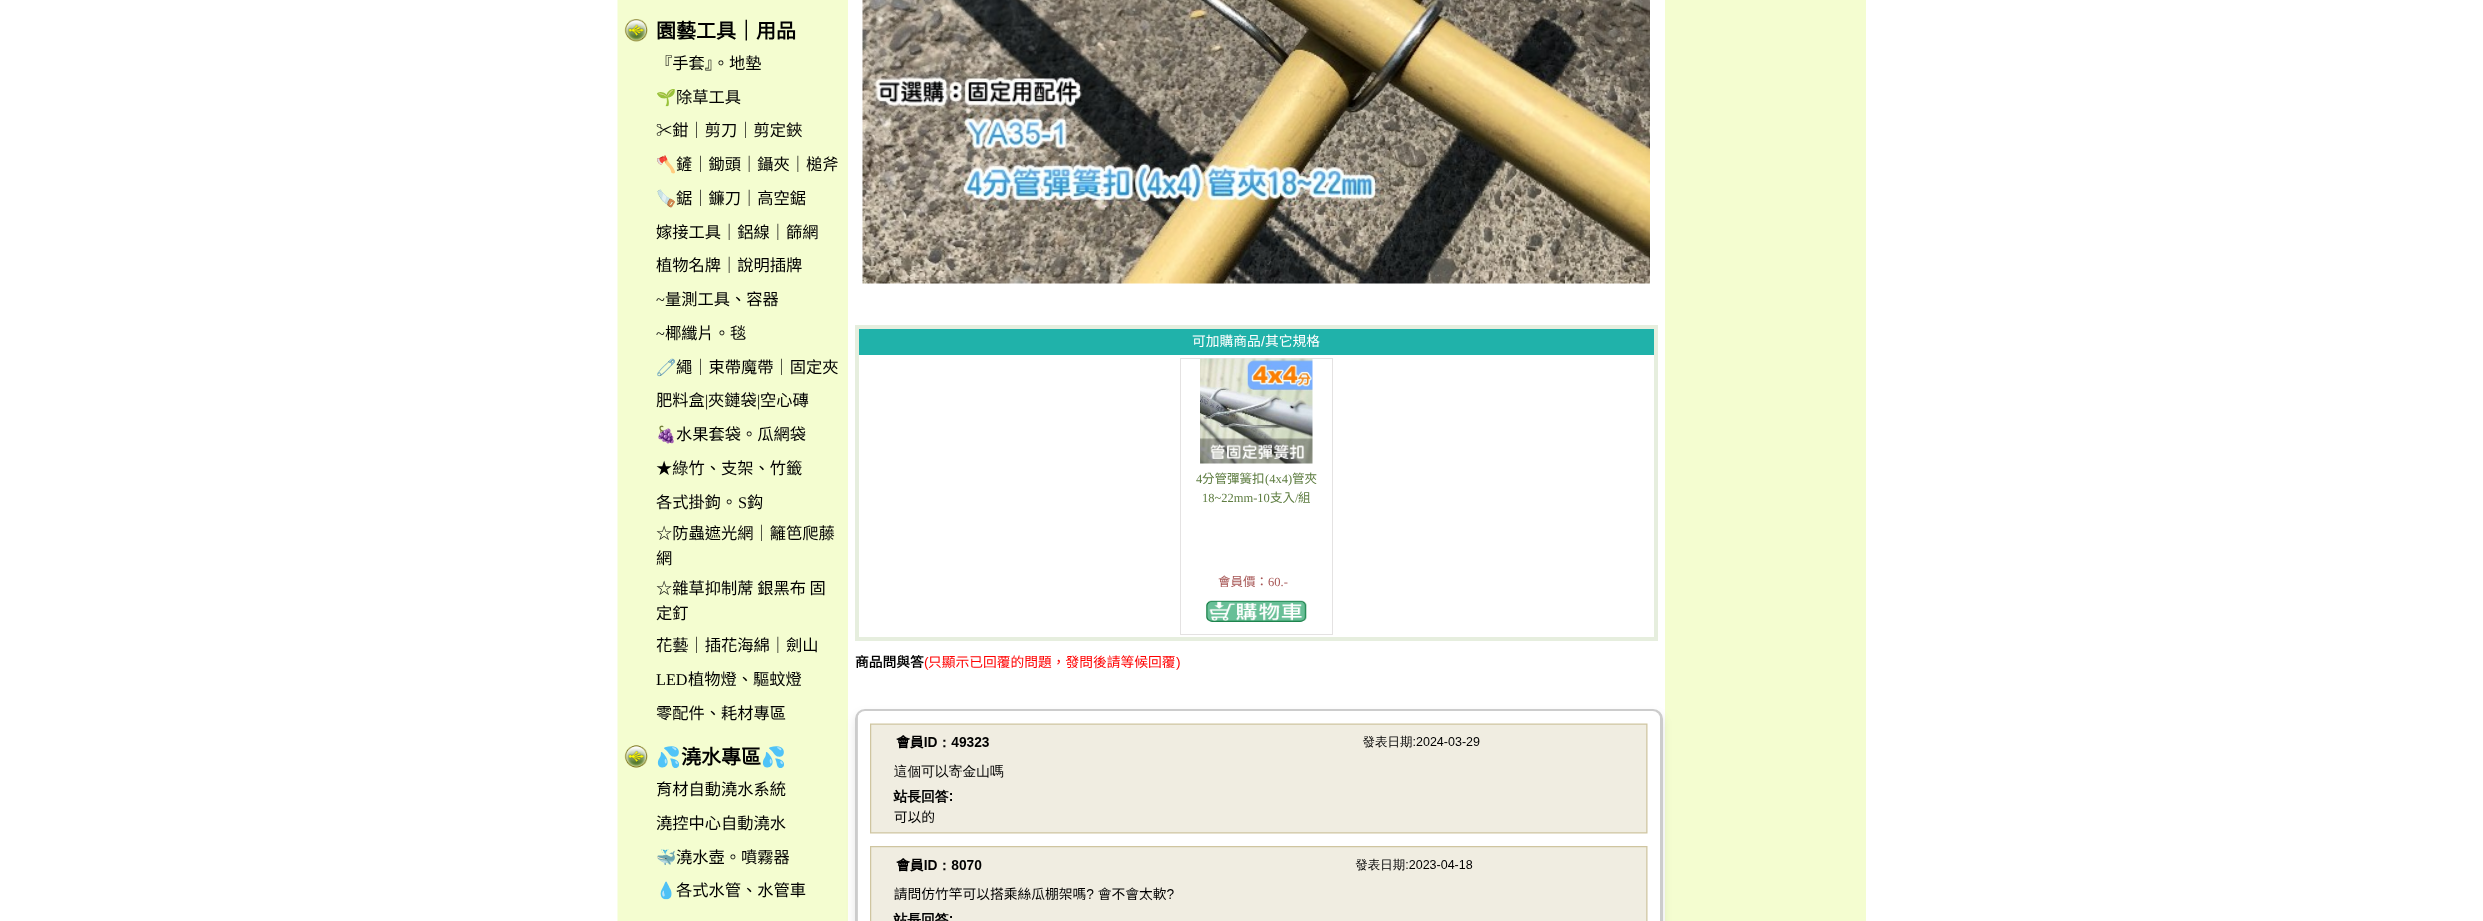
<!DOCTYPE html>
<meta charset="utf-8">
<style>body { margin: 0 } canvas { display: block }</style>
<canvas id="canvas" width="2483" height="921"></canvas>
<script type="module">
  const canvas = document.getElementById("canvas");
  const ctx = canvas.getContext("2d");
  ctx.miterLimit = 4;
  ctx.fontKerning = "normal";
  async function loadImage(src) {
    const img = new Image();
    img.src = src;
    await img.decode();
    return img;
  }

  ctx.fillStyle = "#ffffff";
  ctx.fillRect(0, 0, 2483, 921);
  ctx.fillStyle = "#f4fdd0";
  ctx.fillRect(618, 0, 230, 921);
  ctx.fillStyle = "#f9fee7";
  ctx.fillRect(617, 0, 1, 921);
  ctx.drawImage(await loadImage("img1.png"), 624, 19, 24, 23);
  ctx.font = "bold 20px Noto Sans CJK TC";
  ctx.fillStyle = "#000000";
  ctx.fillText("園藝工具｜用品", 656, 38);
  ctx.font = "16.25px Noto Sans CJK TC";
  ctx.fillText("『手套』。地墊", 656, 69);
  ctx.font = "16.25px Noto Color Emoji";
  ctx.fillText("🌱", 656, 103);
  ctx.font = "16.25px Noto Sans CJK TC";
  ctx.fillText("除草工具", 676, 103);
  ctx.fillText("✂鉗｜剪刀｜剪定鋏", 656, 136);
  ctx.font = "16.25px Noto Color Emoji";
  ctx.fillText("🪓", 656, 170);
  ctx.font = "16.25px Noto Sans CJK TC";
  ctx.fillText("鏟｜鋤頭｜鑷夾｜槌斧", 676, 170);
  ctx.font = "16.25px Noto Color Emoji";
  ctx.fillText("🪚", 656, 204);
  ctx.font = "16.25px Noto Sans CJK TC";
  ctx.fillText("鋸｜鐮刀｜高空鋸", 676, 204);
  ctx.fillText("嫁接工具｜鋁線｜篩網", 656, 238);
  ctx.fillText("植物名牌｜說明插牌", 656, 271);
  ctx.font = "16.25px Liberation Serif";
  ctx.fillText("~", 656, 305);
  ctx.font = "16.25px Noto Sans CJK TC";
  ctx.fillText("量測工具、容器", 665, 305);
  ctx.font = "16.25px Liberation Serif";
  ctx.fillText("~", 656, 339);
  ctx.font = "16.25px Noto Sans CJK TC";
  ctx.fillText("椰纖片。毯", 665, 339);
  ctx.font = "16.25px Noto Color Emoji";
  ctx.fillText("🧷", 656, 373);
  ctx.font = "16.25px Noto Sans CJK TC";
  ctx.fillText("繩｜束帶魔帶｜固定夾", 676, 373);
  ctx.fillText("肥料盒", 656, 406);
  ctx.font = "16.25px Liberation Serif";
  ctx.fillText("|", 705, 406);
  ctx.font = "16.25px Noto Sans CJK TC";
  ctx.fillText("夾鏈袋", 708, 406);
  ctx.font = "16.25px Liberation Serif";
  ctx.fillText("|", 757, 406);
  ctx.font = "16.25px Noto Sans CJK TC";
  ctx.fillText("空心磚", 760, 406);
  ctx.font = "16.25px Noto Color Emoji";
  ctx.fillText("🍇", 656, 440);
  ctx.font = "16.25px Noto Sans CJK TC";
  ctx.fillText("水果套袋。瓜網袋", 676, 440);
  ctx.fillText("★綠竹、支架、竹籤", 656, 474);
  ctx.fillText("各式掛鉤。", 656, 508);
  ctx.font = "16.25px Liberation Serif";
  ctx.fillText("S", 738, 508);
  ctx.font = "16.25px Noto Sans CJK TC";
  ctx.fillText("鈎", 747, 508);
  ctx.fillText("☆防蟲遮光網｜籬笆爬藤", 656, 539);
  ctx.fillText("網", 656, 564);
  ctx.fillText("☆雜草抑制蓆 銀黑布 固", 656, 594);
  ctx.fillText("定釘", 656, 619);
  ctx.fillText("花藝｜插花海綿｜劍山", 656, 651);
  ctx.font = "16.25px Liberation Serif";
  ctx.fillText("LED", 656, 685);
  ctx.font = "16.25px Noto Sans CJK TC";
  ctx.fillText("植物燈、驅蚊燈", 688, 685);
  ctx.fillText("零配件、耗材專區", 656, 719);
  ctx.drawImage(await loadImage("img2.png"), 624, 745, 24, 23);
  ctx.font = "bold 20px Noto Color Emoji";
  ctx.fillText("💦", 656, 764);
  ctx.font = "bold 20px Noto Sans CJK TC";
  ctx.fillText("澆水專區", 681, 764);
  ctx.font = "bold 20px Noto Color Emoji";
  ctx.fillText("💦", 761, 764);
  ctx.font = "16.25px Noto Sans CJK TC";
  ctx.fillText("育材自動澆水系統", 656, 795);
  ctx.fillText("澆控中心自動澆水", 656, 829);
  ctx.font = "16.25px Noto Color Emoji";
  ctx.fillText("🐳", 656, 863);
  ctx.font = "16.25px Noto Sans CJK TC";
  ctx.fillText("澆水壺。噴霧器", 676, 863);
  ctx.font = "16.25px Noto Color Emoji";
  ctx.fillText("💧", 656, 896);
  ctx.font = "16.25px Noto Sans CJK TC";
  ctx.fillText("各式水管、水管車", 676, 896);
  ctx.drawImage(await loadImage("img3.png"), 862, 0, 788, 284);
  ctx.strokeStyle = "#e6eede";
  ctx.lineWidth = 4;
  ctx.strokeRect(857, 327, 799, 312);
  ctx.fillStyle = "#20b2aa";
  ctx.fillRect(859, 329, 795, 26);
  ctx.font = "13.75px Noto Sans CJK TC";
  ctx.fillStyle = "#ffffff";
  ctx.fillText("可加購商品", 1192, 346);
  ctx.font = "13.75px Liberation Sans";
  ctx.fillText("/", 1261, 346);
  ctx.font = "13.75px Noto Sans CJK TC";
  ctx.fillText("其它規格", 1265, 346);
  ctx.strokeStyle = "#e4e2e2";
  ctx.lineWidth = 1;
  ctx.strokeRect(1180.5, 358.5, 152, 276);
  ctx.drawImage(await loadImage("img4.png"), 1200, 358, 113, 106);
  ctx.font = "12.5px Liberation Serif";
  ctx.fillStyle = "#5e7d41";
  ctx.fillText("4", 1196, 483);
  ctx.font = "12.5px Noto Sans CJK TC";
  ctx.fillText("分管彈簧扣", 1202, 483);
  ctx.font = "12.5px Liberation Serif";
  ctx.fillText("(4x4)", 1265, 483);
  ctx.font = "12.5px Noto Sans CJK TC";
  ctx.fillText("管夾", 1292, 483);
  ctx.font = "12.5px Liberation Serif";
  ctx.fillText("18~22mm-10", 1202, 502);
  ctx.font = "12.5px Noto Sans CJK TC";
  ctx.fillText("支入", 1270, 502);
  ctx.font = "12.5px Liberation Serif";
  ctx.fillText("/", 1295, 502);
  ctx.font = "12.5px Noto Sans CJK TC";
  ctx.fillText("組", 1298, 502);
  ctx.fillStyle = "#a65554";
  ctx.fillText("會員價：", 1218, 586);
  ctx.font = "12.5px Liberation Serif";
  ctx.fillText("60.-", 1268, 586);
  ctx.drawImage(await loadImage("img5.png"), 1206, 600, 101, 22);
  ctx.font = "bold 13.75px Noto Sans CJK TC";
  ctx.fillStyle = "#000000";
  ctx.fillText("商品問與答", 855, 667);
  ctx.font = "13.75px Liberation Sans";
  ctx.fillStyle = "#ff0000";
  ctx.fillText("(", 924, 667);
  ctx.font = "13.75px Noto Sans CJK TC";
  ctx.fillText("只顯示已回覆的問題，發問後請等候回覆", 928, 667);
  ctx.font = "13.75px Liberation Sans";
  ctx.fillText(")", 1176, 667);
  ctx.fillStyle = "#f4fdd0";
  ctx.fillRect(1665, 0, 201, 921);
  ctx.fillStyle = "rgba(0, 0, 0, 0.1)";
  ctx.filter = "blur(5px)";
  ctx.beginPath();
  ctx.roundRect(855, 714, 808, 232, 10);
  ctx.fill();
  ctx.filter = "none";
  ctx.beginPath();
  ctx.roundRect(856.5, 710.5, 805, 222, 8.5);
  ctx.strokeStyle = "#cccccc";
  ctx.lineWidth = 3;
  ctx.stroke();
  ctx.drawImage(await loadImage("img6.png"), 857, 711, 803, 210);
</script>
